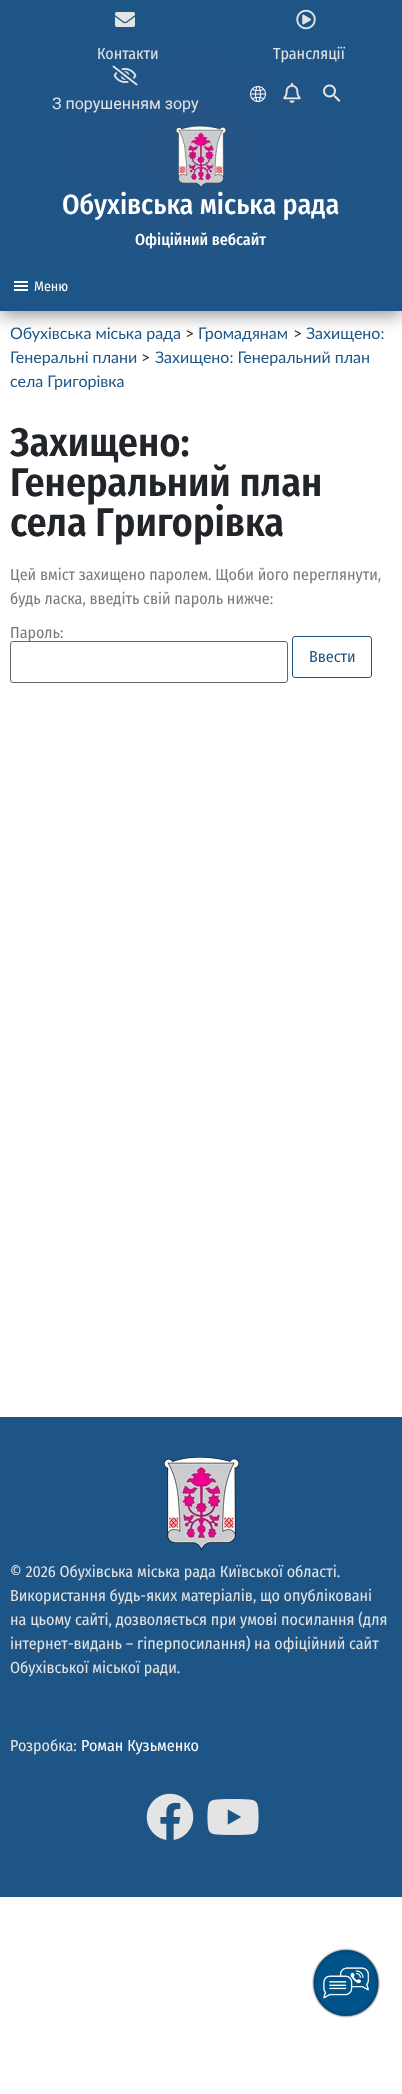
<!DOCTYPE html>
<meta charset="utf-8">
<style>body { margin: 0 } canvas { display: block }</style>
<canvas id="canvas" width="402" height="2094"></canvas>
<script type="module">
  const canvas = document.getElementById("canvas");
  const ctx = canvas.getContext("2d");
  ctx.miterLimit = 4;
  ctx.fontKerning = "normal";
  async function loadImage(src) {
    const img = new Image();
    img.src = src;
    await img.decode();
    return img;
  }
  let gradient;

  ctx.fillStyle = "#ffffff";
  ctx.fillRect(0, 0, 402, 2094);
  ctx.fillStyle = "rgba(0, 0, 0, 0.5)";
  ctx.filter = "blur(10px)";
  ctx.beginPath();
  ctx.rect(0, 2, 402, 311);
  ctx.fill();
  ctx.filter = "none";
  gradient = ctx.createRadialGradient(201, 201.38, 0, 201, 201.38, 284);
  gradient.addColorStop(0, "#265484");
  gradient.addColorStop(0.7, "#1d5587");
  ctx.fillStyle = gradient;
  ctx.beginPath();
  ctx.rect(0, 0, 402, 311);
  ctx.save();
  ctx.clip();
  ctx.scale(1, 220 / 284);
  ctx.fillRect(0, 0, 402, 2704);
  ctx.restore();
  ctx.drawImage(await loadImage("img1.png"), 115, 12, 20, 15);
  ctx.font = "16px Fira Sans Condensed";
  ctx.fillStyle = "#e4e4e4";
  ctx.fillText("Контакти", 97, 59);
  ctx.drawImage(await loadImage("img2.png"), 296, 9, 20, 21);
  ctx.fillText("Трансляції", 273, 59);
  ctx.drawImage(await loadImage("img3.png"), 250, 86, 16, 16);
  ctx.drawImage(await loadImage("img4.png"), 283, 83, 18, 20);
  ctx.drawImage(await loadImage("img5.png"), 323, 84, 18, 18);
  ctx.drawImage(await loadImage("img6.png"), 112, 65, 26, 21);
  ctx.font = "16px Roboto";
  ctx.fillText("З порушенням зору", 52, 109);
  ctx.drawImage(await loadImage("img7.png"), 176, 126, 50, 62);
  ctx.font = "500 28px Fira Sans Condensed";
  ctx.fillStyle = "#ffffff";
  ctx.fillText("Обухівська міська рада", 62, 214);
  ctx.font = "500 16px Fira Sans Condensed";
  ctx.fillText("Офіційний вебсайт", 135, 245);
  ctx.drawImage(await loadImage("img8.png"), 14, 281, 14, 10);
  ctx.font = "14px Fira Sans Condensed";
  ctx.fillText("Меню", 34, 291);
  ctx.font = "16px Lato";
  ctx.fillStyle = "#1d5587";
  ctx.fillText("Обухівська міська рада", 10, 339);
  ctx.fillStyle = "#333333";
  ctx.fillText(">", 185, 339);
  ctx.fillStyle = "#1d5587";
  ctx.fillText("Громадянам", 198, 339);
  ctx.fillStyle = "#333333";
  ctx.fillText(">", 293, 339);
  ctx.fillStyle = "#1d5587";
  ctx.fillText("Захищено:", 306, 339);
  ctx.fillText("Генеральні плани", 10, 363);
  ctx.fillStyle = "#333333";
  ctx.fillText(">", 141, 363);
  ctx.fillStyle = "#1d5587";
  ctx.fillText("Захищено: Генеральний план", 155, 363);
  ctx.fillText("села Григорівка", 10, 387);
  ctx.font = "600 40px Fira Sans Condensed";
  ctx.fillStyle = "#212529";
  ctx.fillText("Захищено:", 10, 456);
  ctx.fillText("Генеральний план", 10, 496);
  ctx.fillText("села Григорівка", 10, 536);
  ctx.font = "16px Fira Sans Condensed";
  ctx.fillStyle = "#7a7a7a";
  ctx.fillText("Цей вміст захищено паролем. Щоби його переглянути,", 10, 580);
  ctx.fillText("будь ласка, введіть свій пароль нижче:", 10, 604);
  ctx.fillText("Пароль:", 10, 638);
  ctx.fillStyle = "#ffffff";
  ctx.beginPath();
  ctx.roundRect(10.5, 641.5, 277, 41, 2.5);
  ctx.fill();
  ctx.strokeStyle = "#666666";
  ctx.stroke();
  ctx.beginPath();
  ctx.roundRect(292.5, 636.5, 79, 41, 2.5);
  ctx.strokeStyle = "#1d5587";
  ctx.stroke();
  ctx.fillStyle = "#1d5587";
  ctx.fillText("Ввести", 309, 662);
  ctx.fillRect(0, 1417, 402, 480);
  ctx.drawImage(await loadImage("img9.png"), 164, 1457, 75, 93);
  ctx.fillStyle = "#e4e4e4";
  ctx.fillText("© 2026 Обухівська міська рада Київської області.", 10, 1577);
  ctx.fillText("Використання будь-яких матеріалів, що опубліковані", 10, 1601);
  ctx.fillText("на цьому сайті, дозволяється при умові посилання (для", 10, 1625);
  ctx.fillText("інтернет-видань – гіперпосилання) на офіційний сайт", 10, 1649);
  ctx.fillText("Обухівської міської ради.", 10, 1673);
  ctx.fillText("Розробка:", 10, 1751);
  ctx.fillStyle = "#ffffff";
  ctx.fillText("Роман Кузьменко", 81, 1751);
  ctx.drawImage(await loadImage("img10.png"), 146, 1793, 48, 47);
  ctx.drawImage(await loadImage("img11.png"), 207, 1799, 52, 36);
  ctx.drawImage(await loadImage("img12.png"), 312, 1948, 69, 70);
</script>
